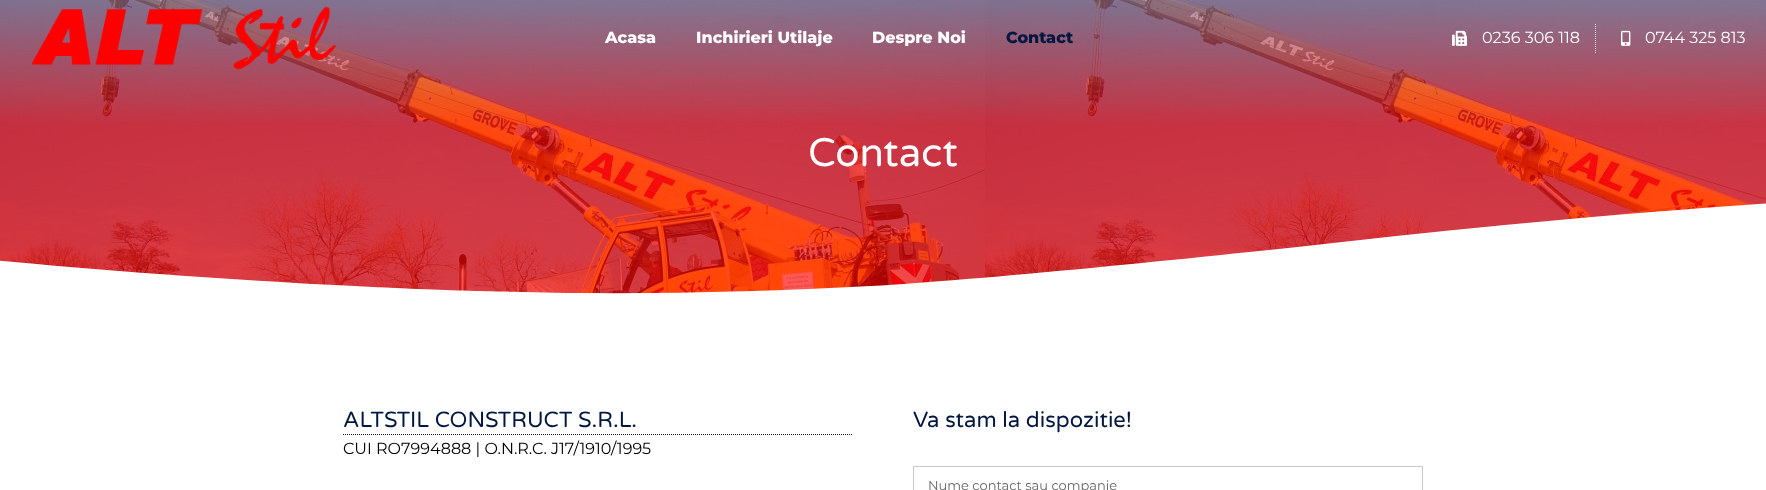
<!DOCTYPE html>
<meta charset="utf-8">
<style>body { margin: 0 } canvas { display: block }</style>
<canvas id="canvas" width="1766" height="490"></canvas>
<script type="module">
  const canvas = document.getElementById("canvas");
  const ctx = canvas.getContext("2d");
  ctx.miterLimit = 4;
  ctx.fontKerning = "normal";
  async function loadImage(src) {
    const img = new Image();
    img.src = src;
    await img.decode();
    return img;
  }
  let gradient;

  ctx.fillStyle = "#ffffff";
  ctx.fillRect(0, 0, 1766, 490);
  gradient = ctx.createLinearGradient(883, -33, 883, 299);
  gradient.addColorStop(0, "#838da2");
  gradient.addColorStop(0.48, "#ff0000");
  ctx.fillStyle = gradient;
  ctx.fillRect(0, 0, 1766, 294);
  ctx.drawImage(await loadImage("img4.png"), 0, 0, 1766, 294);
  ctx.drawImage(await loadImage("img1.png"), 32, 6, 305, 64);
  ctx.font = "800 16px Montserrat";
  ctx.fillStyle = "#ffffff";
  ctx.fillText("Acasa", 605, 43);
  ctx.fillText("Inchirieri Utilaje", 696, 43);
  ctx.fillText("Despre Noi", 872, 43);
  ctx.fillStyle = "#011640";
  ctx.fillText("Contact", 1006, 43);
  ctx.drawImage(await loadImage("img2.png"), 1452, 30, 15, 16);
  ctx.font = "16px Montserrat";
  ctx.fillStyle = "#ffffff";
  ctx.fillText("0236 306 118", 1482, 43);
  ctx.beginPath();
  ctx.moveTo(1595.5, 24);
  ctx.lineTo(1595.5, 53);
  ctx.strokeStyle = "#dddddd";
  ctx.setLineDash([1, 1]);
  ctx.stroke();
  ctx.drawImage(await loadImage("img3.png"), 1621, 30, 10, 16);
  ctx.fillText("0744 325 813", 1645, 43);
  ctx.font = "40px Varela Round";
  ctx.fillText("Contact", 808, 166);
  ctx.beginPath();
  ctx.moveTo(524, 292);
  ctx.bezierCurveTo(628, 295, 761, 292, 871, 286);
  ctx.bezierCurveTo(979, 280, 1197, 258, 1333, 243);
  ctx.bezierCurveTo(1681, 204, 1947, 190, 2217, 183);
  ctx.bezierCurveTo(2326, 181, 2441, 179, 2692, 186);
  ctx.bezierCurveTo(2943, 194, 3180, 217, 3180, 217);
  ctx.lineTo(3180, 300);
  ctx.lineTo(-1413, 300);
  ctx.lineTo(-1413, 264);
  ctx.bezierCurveTo(-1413, 264, -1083, 224, -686, 227);
  ctx.bezierCurveTo(-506, 228, -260, 235, -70, 254);
  ctx.bezierCurveTo(27, 264, 169, 276, 296, 283);
  ctx.bezierCurveTo(420, 290, 477, 291, 524, 292);
  ctx.closePath();
  ctx.fill();
  ctx.beginPath();
  ctx.moveTo(343, 434.5);
  ctx.lineTo(853, 434.5);
  ctx.strokeStyle = "#011640";
  ctx.stroke();
  ctx.font = "22px Varela Round";
  ctx.fillStyle = "#011640";
  ctx.fillText("ALTSTIL CONSTRUCT S.R.L.", 343, 427);
  ctx.font = "16px Montserrat";
  ctx.fillStyle = "#000000";
  ctx.fillText("CUI RO7994888 | O.N.R.C. J17/1910/1995", 343, 454);
  ctx.font = "22px Varela Round";
  ctx.fillStyle = "#011640";
  ctx.fillText("Va stam la dispozitie!", 913, 427);
  ctx.strokeStyle = "#c9c9c9";
  ctx.setLineDash([]);
  ctx.strokeRect(913.5, 466.5, 509, 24);
  ctx.font = "13px Montserrat";
  ctx.fillStyle = "#666666";
  ctx.fillText("Nume contact sau companie", 928, 490);
</script>
